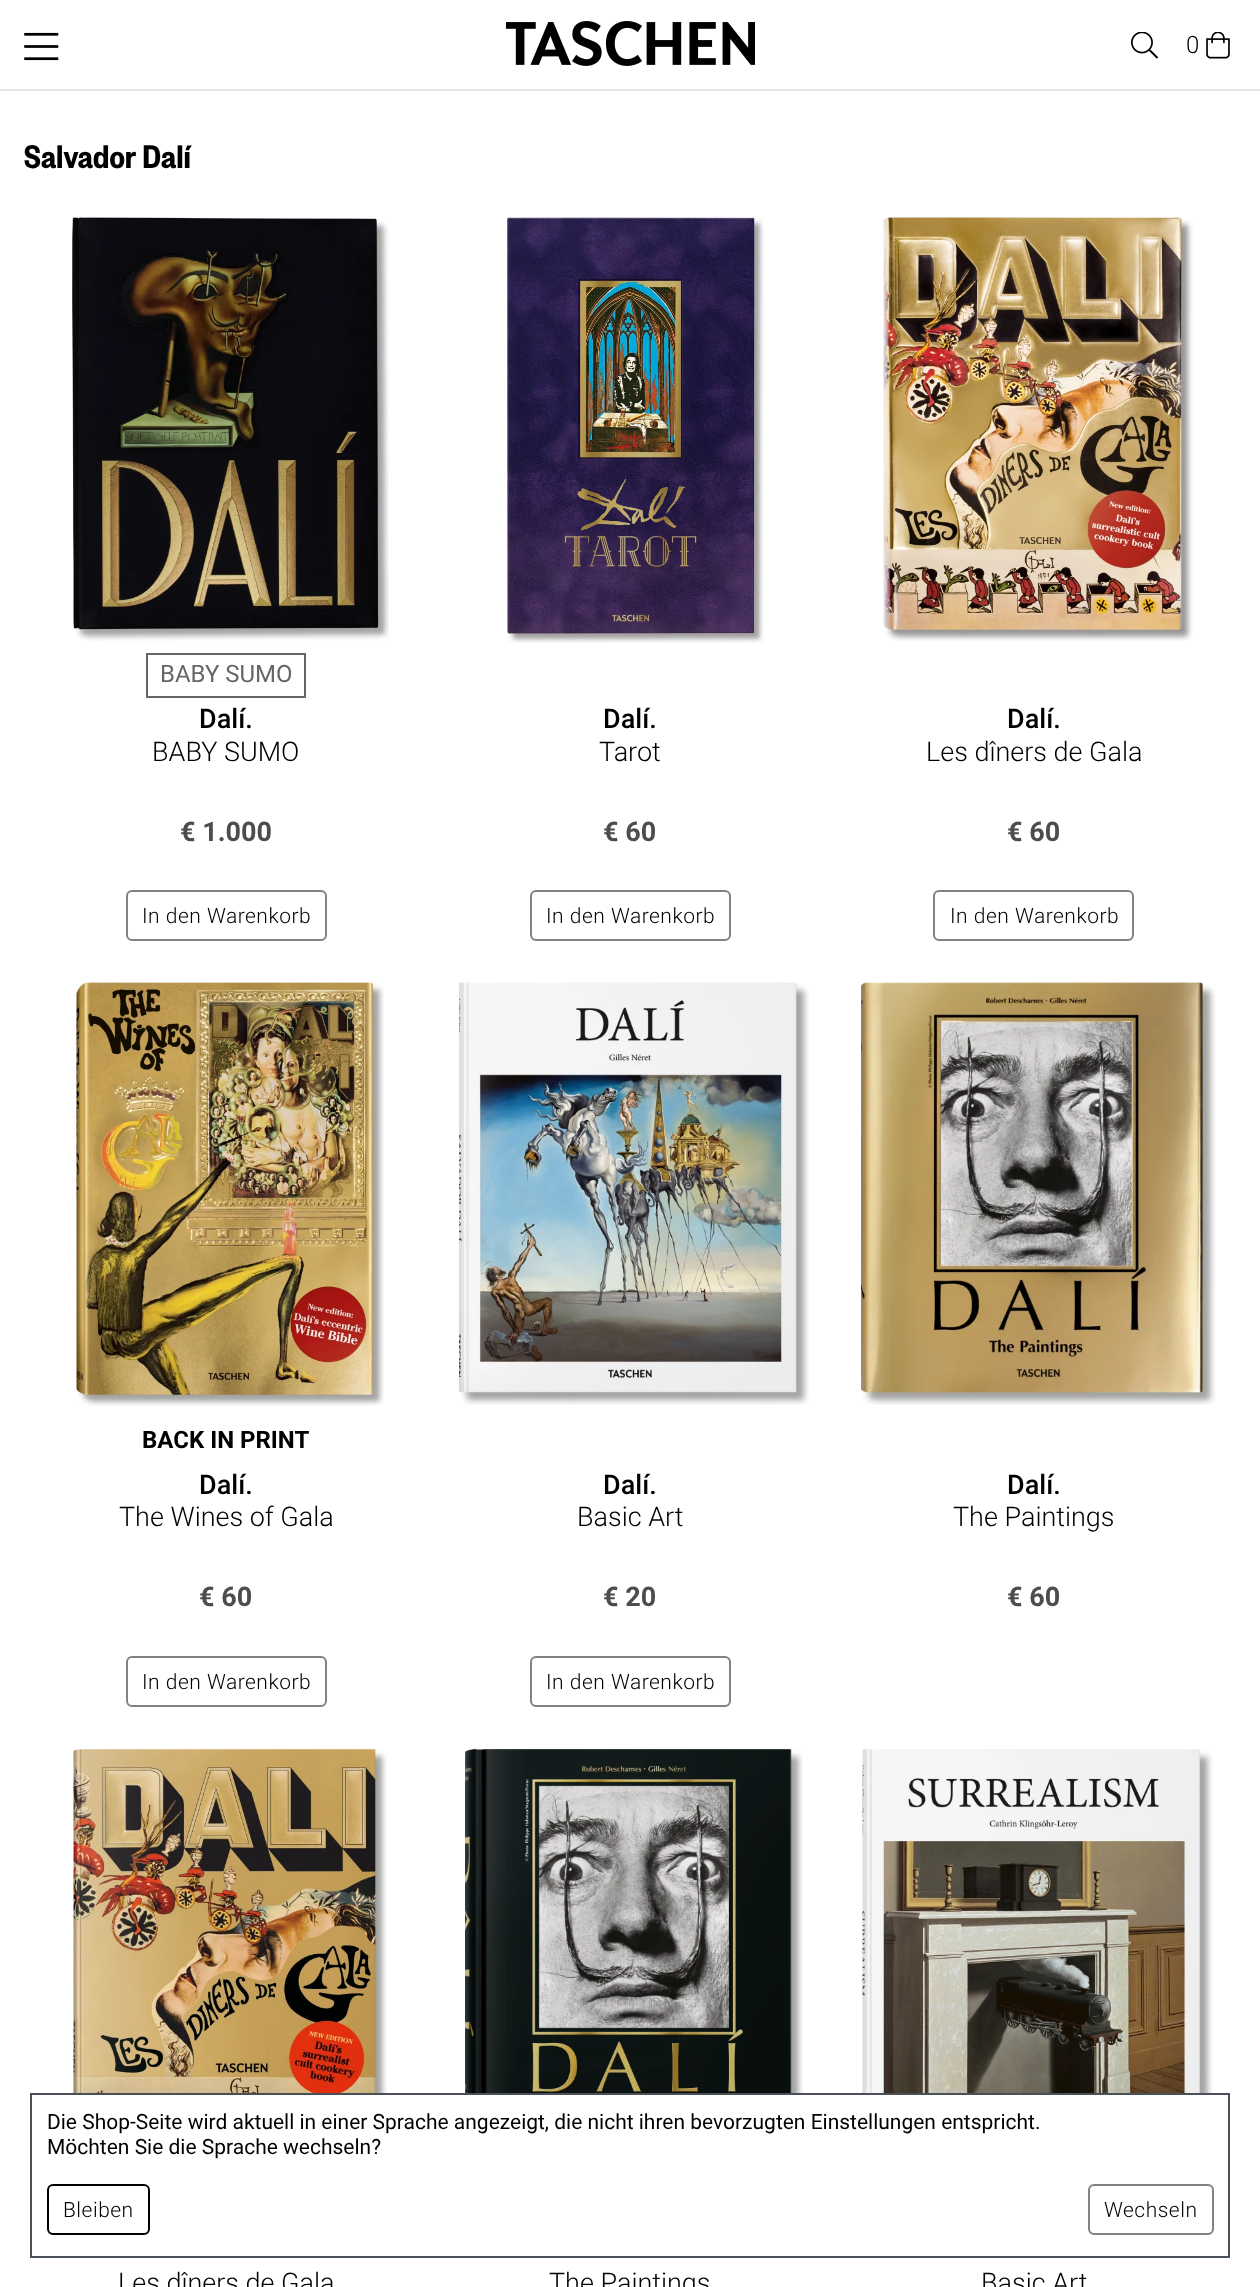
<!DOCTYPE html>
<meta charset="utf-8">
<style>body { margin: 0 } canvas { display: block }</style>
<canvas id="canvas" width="1260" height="2287"></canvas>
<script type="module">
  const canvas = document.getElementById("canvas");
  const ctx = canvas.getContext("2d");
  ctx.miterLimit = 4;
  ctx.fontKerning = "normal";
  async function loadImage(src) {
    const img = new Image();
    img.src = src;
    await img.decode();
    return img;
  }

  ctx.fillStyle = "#ffffff";
  ctx.fillRect(0, 0, 1260, 2287);
  ctx.fillStyle = "#e5e5e5";
  ctx.fillRect(0, 89, 1260, 2);
  ctx.drawImage(await loadImage("img1.png"), 24, 32, 35, 29);
  ctx.drawImage(await loadImage("img2.png"), 506, 21, 249, 45);
  ctx.drawImage(await loadImage("img3.png"), 1131, 32, 27, 27);
  ctx.letterSpacing = "0.5px";
  ctx.font = "300 24px Roboto";
  ctx.fillStyle = "#000000";
  ctx.fillText("0", 1186, 53);
  ctx.drawImage(await loadImage("img4.png"), 1206, 32, 24, 27);
  ctx.letterSpacing = "0px";
  ctx.font = "600 36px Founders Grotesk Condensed";
  ctx.fillText("Salvador Dalí", 24, 168);
  ctx.drawImage(await loadImage("img5.png"), 72, 217, 317, 424);
  ctx.strokeStyle = "#666666";
  ctx.lineWidth = 2;
  ctx.strokeRect(147, 654, 158, 43);
  ctx.font = "24px Roboto";
  ctx.fillStyle = "#666666";
  ctx.fillText("BABY SUMO", 160, 682);
  ctx.font = "500 27px Roboto";
  ctx.fillStyle = "#000000";
  ctx.fillText("Dalí.", 199, 728);
  ctx.font = "300 27px Roboto";
  ctx.fillText("BABY SUMO", 152, 761);
  ctx.font = "bold 27px Roboto";
  ctx.fillStyle = "#4d4d4d";
  ctx.fillText("€ 1.000", 180, 841);
  ctx.beginPath();
  ctx.roundRect(127, 891, 199, 49, 5);
  ctx.strokeStyle = "#828282";
  ctx.stroke();
  ctx.letterSpacing = "0.5px";
  ctx.font = "300 21px Roboto";
  ctx.fillStyle = "#000000";
  ctx.fillText("In den Warenkorb", 142, 923);
  ctx.drawImage(await loadImage("img6.png"), 507, 217, 257, 426);
  ctx.letterSpacing = "0px";
  ctx.font = "500 27px Roboto";
  ctx.fillText("Dalí.", 603, 728);
  ctx.font = "300 27px Roboto";
  ctx.fillText("Tarot", 599, 761);
  ctx.font = "bold 27px Roboto";
  ctx.fillStyle = "#4d4d4d";
  ctx.fillText("€ 60", 603, 841);
  ctx.beginPath();
  ctx.roundRect(531, 891, 199, 49, 5);
  ctx.stroke();
  ctx.letterSpacing = "0.5px";
  ctx.font = "300 21px Roboto";
  ctx.fillStyle = "#000000";
  ctx.fillText("In den Warenkorb", 546, 923);
  ctx.drawImage(await loadImage("img7.png"), 883, 217, 310, 424);
  ctx.letterSpacing = "0px";
  ctx.font = "500 27px Roboto";
  ctx.fillText("Dalí.", 1007, 728);
  ctx.font = "300 27px Roboto";
  ctx.fillText("Les dîners de Gala", 926, 761);
  ctx.font = "bold 27px Roboto";
  ctx.fillStyle = "#4d4d4d";
  ctx.fillText("€ 60", 1007, 841);
  ctx.beginPath();
  ctx.roundRect(934, 891, 199, 49, 5);
  ctx.stroke();
  ctx.letterSpacing = "0.5px";
  ctx.font = "300 21px Roboto";
  ctx.fillStyle = "#000000";
  ctx.fillText("In den Warenkorb", 950, 923);
  ctx.drawImage(await loadImage("img8.png"), 76, 982, 308, 424);
  ctx.letterSpacing = "0px";
  ctx.font = "bold 24px Roboto";
  ctx.fillText("BACK IN PRINT", 142, 1448);
  ctx.font = "500 27px Roboto";
  ctx.fillText("Dalí.", 199, 1494);
  ctx.font = "300 27px Roboto";
  ctx.fillText("The Wines of Gala", 119, 1526);
  ctx.font = "bold 27px Roboto";
  ctx.fillStyle = "#4d4d4d";
  ctx.fillText("€ 60", 199, 1606);
  ctx.beginPath();
  ctx.roundRect(127, 1657, 199, 49, 5);
  ctx.stroke();
  ctx.letterSpacing = "0.5px";
  ctx.font = "300 21px Roboto";
  ctx.fillStyle = "#000000";
  ctx.fillText("In den Warenkorb", 142, 1689);
  ctx.drawImage(await loadImage("img9.png"), 459, 982, 350, 423);
  ctx.letterSpacing = "0px";
  ctx.font = "500 27px Roboto";
  ctx.fillText("Dalí.", 603, 1494);
  ctx.font = "300 27px Roboto";
  ctx.fillText("Basic Art", 577, 1526);
  ctx.font = "bold 27px Roboto";
  ctx.fillStyle = "#4d4d4d";
  ctx.fillText("€ 20", 603, 1606);
  ctx.beginPath();
  ctx.roundRect(531, 1657, 199, 49, 5);
  ctx.stroke();
  ctx.letterSpacing = "0.5px";
  ctx.font = "300 21px Roboto";
  ctx.fillStyle = "#000000";
  ctx.fillText("In den Warenkorb", 546, 1689);
  ctx.drawImage(await loadImage("img10.png"), 861, 982, 355, 423);
  ctx.letterSpacing = "0px";
  ctx.font = "500 27px Roboto";
  ctx.fillText("Dalí.", 1007, 1494);
  ctx.font = "300 27px Roboto";
  ctx.fillText("The Paintings", 953, 1526);
  ctx.font = "bold 27px Roboto";
  ctx.fillStyle = "#4d4d4d";
  ctx.fillText("€ 60", 1007, 1606);
  ctx.drawImage(await loadImage("img11.png"), 73, 1749, 314, 344);
  ctx.font = "300 27px Roboto";
  ctx.fillStyle = "#000000";
  ctx.fillText("Les dîners de Gala", 118, 2292);
  ctx.drawImage(await loadImage("img12.png"), 465, 1749, 338, 344);
  ctx.fillText("The Paintings", 549, 2292);
  ctx.drawImage(await loadImage("img13.png"), 862, 1749, 351, 344);
  ctx.fillText("Basic Art", 981, 2292);
  ctx.strokeStyle = "#495057";
  ctx.strokeRect(31, 2094, 1198, 163);
  ctx.font = "21px Roboto";
  ctx.fillText("Die Shop-Seite wird aktuell in einer Sprache angezeigt, die nicht ihren bevorzugten Einstellungen entspricht.", 47, 2129);
  ctx.fillText("Möchten Sie die Sprache wechseln?", 47, 2154);
  ctx.beginPath();
  ctx.roundRect(48, 2185, 101, 49, 5);
  ctx.strokeStyle = "#000000";
  ctx.stroke();
  ctx.letterSpacing = "0.5px";
  ctx.font = "300 21px Roboto";
  ctx.fillText("Bleiben", 63, 2217);
  ctx.beginPath();
  ctx.roundRect(1089, 2185, 124, 49, 5);
  ctx.strokeStyle = "#828282";
  ctx.stroke();
  ctx.fillText("Wechseln", 1104, 2217);
</script>
